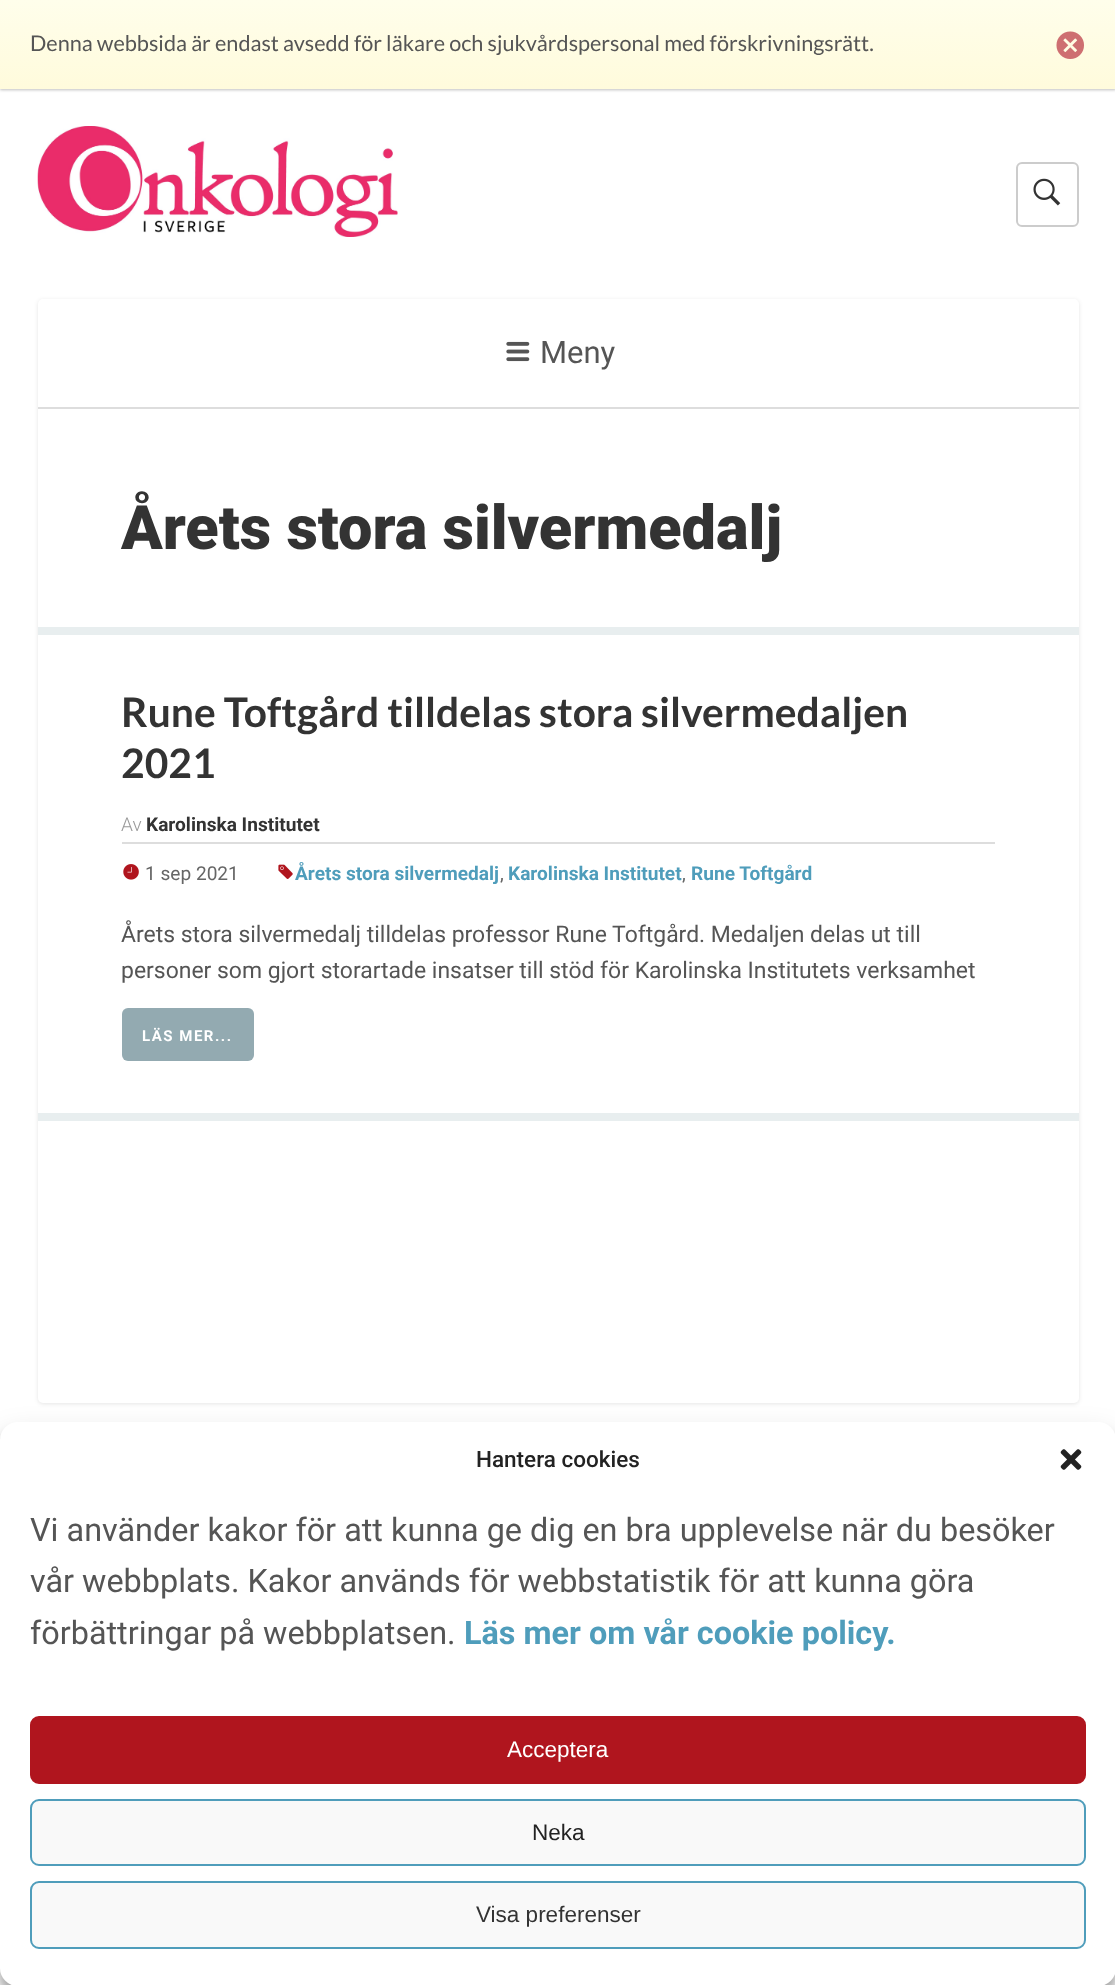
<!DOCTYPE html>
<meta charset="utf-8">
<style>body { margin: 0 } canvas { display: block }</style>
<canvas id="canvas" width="1115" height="1985"></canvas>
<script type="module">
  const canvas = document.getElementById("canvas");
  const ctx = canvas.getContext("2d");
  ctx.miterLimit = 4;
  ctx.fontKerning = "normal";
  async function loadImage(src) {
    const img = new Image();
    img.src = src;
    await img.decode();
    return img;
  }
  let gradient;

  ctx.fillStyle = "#ffffff";
  ctx.fillRect(0, 0, 1115, 1985);
  ctx.fillStyle = "rgba(0, 0, 0, 0.25)";
  ctx.filter = "blur(1.5px)";
  ctx.beginPath();
  ctx.rect(0, 2, 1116, 88);
  ctx.fill();
  ctx.filter = "none";
  gradient = ctx.createLinearGradient(558, 0, 558, 89);
  gradient.addColorStop(0, "#fffeeb");
  gradient.addColorStop(1, "#fffbdc");
  ctx.fillStyle = gradient;
  ctx.fillRect(0, 0, 1115, 89);
  ctx.font = "21.65px Lato";
  ctx.fillStyle = "#555555";
  ctx.fillText("Denna webbsida är endast avsedd för läkare och sjukvårdspersonal med förskrivningsrätt.", 30, 51);
  ctx.drawImage(await loadImage("img1.png"), 1056, 31, 28, 28);
  ctx.drawImage(await loadImage("img2.png"), 37, 126, 361, 111);
  ctx.beginPath();
  ctx.roundRect(1017, 163, 61, 63, 5);
  ctx.strokeStyle = "#cccccc";
  ctx.lineWidth = 2;
  ctx.stroke();
  ctx.drawImage(await loadImage("img3.png"), 1033, 178, 28, 28);
  ctx.fillStyle = "rgba(0, 0, 0, 0.1)";
  ctx.filter = "blur(2px)";
  ctx.beginPath();
  ctx.roundRect(38, 300, 1041, 1104, 5);
  ctx.fill();
  ctx.filter = "none";
  ctx.fillStyle = "#ffffff";
  ctx.beginPath();
  ctx.roundRect(38, 299, 1041, 1104, 5);
  ctx.fill();
  ctx.fillStyle = "#dddddd";
  ctx.fillRect(38, 407, 1041, 2);
  ctx.drawImage(await loadImage("img4.png"), 506, 341, 24, 21);
  ctx.font = "31px Roboto";
  ctx.fillStyle = "#555555";
  ctx.fillText("Meny", 540, 363);
  ctx.font = "900 61.25px Roboto";
  ctx.fillStyle = "#333333";
  ctx.fillText("Årets stora silvermedalj", 121, 549);
  ctx.fillStyle = "#e8eeef";
  ctx.fillRect(38, 627, 1041, 8);
  ctx.fillRect(38, 1113, 1041, 8);
  ctx.font = "bold 40.75px Lato";
  ctx.fillStyle = "#333333";
  ctx.fillText("Rune Toftgård tilldelas stora silvermedaljen", 121, 727);
  ctx.fillText("2021", 121, 778);
  ctx.fillStyle = "#dddddd";
  ctx.fillRect(122, 842, 873, 2);
  ctx.font = "300 19.1px Roboto";
  ctx.fillStyle = "#999999";
  ctx.fillText("Av", 121, 831);
  ctx.font = "bold 19.1px Roboto";
  ctx.fillStyle = "#333333";
  ctx.fillText("Karolinska Institutet", 146, 831);
  ctx.drawImage(await loadImage("img5.png"), 123, 864, 16, 16);
  ctx.font = "19.1px Roboto";
  ctx.fillStyle = "#666666";
  ctx.fillText("1 sep 2021", 145, 880);
  ctx.drawImage(await loadImage("img6.png"), 278, 864, 15, 15);
  ctx.font = "bold 19.1px Roboto";
  ctx.fillStyle = "#4f9dbb";
  ctx.fillText("Årets stora silvermedalj", 295, 880);
  ctx.font = "19.1px Roboto";
  ctx.fillStyle = "#666666";
  ctx.fillText(",", 500, 880);
  ctx.font = "bold 19.1px Roboto";
  ctx.fillStyle = "#4f9dbb";
  ctx.fillText("Karolinska Institutet", 508, 880);
  ctx.font = "19.1px Roboto";
  ctx.fillStyle = "#666666";
  ctx.fillText(",", 682, 880);
  ctx.font = "bold 19.1px Roboto";
  ctx.fillStyle = "#4f9dbb";
  ctx.fillText("Rune Toftgård", 691, 880);
  ctx.font = "22.95px Roboto";
  ctx.fillStyle = "#555555";
  ctx.fillText("Årets stora silvermedalj tilldelas professor Rune Toftgård. Medaljen delas ut till", 121, 942);
  ctx.fillText("personer som gjort storartade insatser till stöd för Karolinska Institutets verksamhet", 121, 978);
  ctx.fillStyle = "#93aab1";
  ctx.beginPath();
  ctx.roundRect(122, 1008, 132, 53, 6);
  ctx.fill();
  ctx.letterSpacing = "1.5px";
  ctx.font = "bold 15px Roboto";
  ctx.fillStyle = "#ffffff";
  ctx.fillText("LÄS MER...", 142, 1041);
  ctx.fillStyle = "rgba(0, 0, 0, 0.23)";
  ctx.filter = "blur(4.5px)";
  ctx.beginPath();
  ctx.roundRect(0, 1431, 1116, 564, 18);
  ctx.fill();
  ctx.filter = "none";
  ctx.fillStyle = "rgba(0, 0, 0, 0.19)";
  ctx.filter = "blur(15px)";
  ctx.beginPath();
  ctx.roundRect(0, 1437, 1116, 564, 18);
  ctx.fill();
  ctx.filter = "none";
  ctx.fillStyle = "#ffffff";
  ctx.beginPath();
  ctx.roundRect(0, 1422, 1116, 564, 18);
  ctx.fill();
  ctx.letterSpacing = "0px";
  ctx.font = "500 22.5px Roboto";
  ctx.fillStyle = "#222222";
  ctx.fillText("Hantera cookies", 476, 1467);
  ctx.drawImage(await loadImage("img7.png"), 1060, 1449, 22, 21);
  ctx.font = "32.4px Roboto";
  ctx.fillStyle = "#555555";
  ctx.fillText("Vi använder kakor för att kunna ge dig en bra upplevelse när du besöker", 30, 1541);
  ctx.fillText("vår webbplats. Kakor används för webbstatistik för att kunna göra", 30, 1592);
  ctx.fillText("förbättringar på webbplatsen.", 30, 1644);
  ctx.font = "bold 32.4px Roboto";
  ctx.fillStyle = "#4f9dbb";
  ctx.fillText("Läs mer om vår cookie policy.", 464, 1644);
  ctx.fillStyle = "#b0151e";
  ctx.beginPath();
  ctx.roundRect(31, 1717, 1054, 66, 8);
  ctx.fill();
  ctx.strokeStyle = "#b0151e";
  ctx.stroke();
  ctx.font = "22.5px Liberation Sans";
  ctx.fillStyle = "#ffffff";
  ctx.fillText("Acceptera", 507, 1757);
  ctx.fillStyle = "#f9f9f9";
  ctx.beginPath();
  ctx.roundRect(31, 1800, 1054, 65, 8);
  ctx.fill();
  ctx.strokeStyle = "#4f9dbb";
  ctx.stroke();
  ctx.fillStyle = "#222222";
  ctx.fillText("Neka", 532, 1840);
  ctx.fillStyle = "#f9f9f9";
  ctx.beginPath();
  ctx.roundRect(31, 1882, 1054, 66, 8);
  ctx.fill();
  ctx.stroke();
  ctx.fillStyle = "#333333";
  ctx.fillText("Visa preferenser", 476, 1922);
</script>
